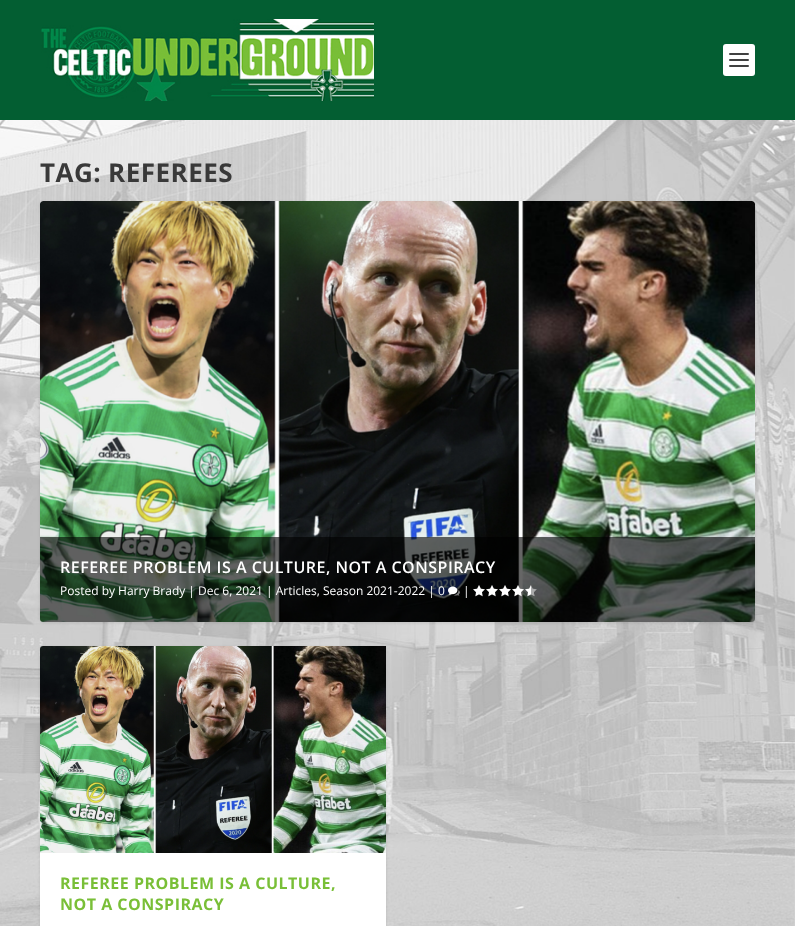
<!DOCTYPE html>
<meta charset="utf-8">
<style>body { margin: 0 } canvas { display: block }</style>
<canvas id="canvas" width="795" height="926"></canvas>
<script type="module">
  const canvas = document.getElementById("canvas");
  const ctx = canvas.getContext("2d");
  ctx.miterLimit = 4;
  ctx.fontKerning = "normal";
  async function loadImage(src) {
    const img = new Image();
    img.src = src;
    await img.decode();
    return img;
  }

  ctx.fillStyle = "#ffffff";
  ctx.fillRect(0, 0, 795, 926);
  ctx.drawImage(await loadImage("img1.png"), 0, 120, 795, 806);
  ctx.fillStyle = "#035e32";
  ctx.fillRect(0, 0, 795, 120);
  ctx.drawImage(await loadImage("img2.png"), 41, 19, 333, 82);
  ctx.fillStyle = "#ffffff";
  ctx.beginPath();
  ctx.roundRect(723, 44, 32, 32, 3);
  ctx.fill();
  ctx.fillStyle = "#404040";
  ctx.beginPath();
  ctx.roundRect(729, 53, 20, 2, 1);
  ctx.fill();
  ctx.beginPath();
  ctx.roundRect(729, 59, 20, 2, 1);
  ctx.fill();
  ctx.beginPath();
  ctx.roundRect(729, 65, 20, 2, 1);
  ctx.fill();
  ctx.letterSpacing = "0.5px";
  ctx.font = "bold 26px Open Sans";
  ctx.fillStyle = "#393939";
  ctx.fillText("TAG:", 40, 182);
  ctx.fillText("REFEREES", 108, 182);
  ctx.fillStyle = "rgba(0, 0, 0, 0.1)";
  ctx.filter = "blur(1.5px)";
  ctx.beginPath();
  ctx.roundRect(40, 202, 715, 421, 3);
  ctx.fill();
  ctx.filter = "none";
  ctx.fillStyle = "#ffffff";
  ctx.beginPath();
  ctx.roundRect(40, 201, 715, 421, 3);
  ctx.fill();
  ctx.drawImage(await loadImage("img3.png"), 40, 201, 715, 421);
  ctx.fillStyle = "rgba(0, 0, 0, 0.6)";
  ctx.beginPath();
  ctx.roundRect(40, 537, 715, 85, [0, 0, 3, 3]);
  ctx.fill();
  ctx.font = "600 16px Open Sans";
  ctx.fillStyle = "#ffffff";
  ctx.fillText("REFEREE PROBLEM IS A CULTURE, NOT A CONSPIRACY", 60, 573);
  ctx.letterSpacing = "0px";
  ctx.font = "12px Open Sans";
  ctx.fillText("Posted by Harry Brady | Dec 6, 2021 | Articles, Season 2021-2022 | 0", 60, 595);
  ctx.drawImage(await loadImage("img4.png"), 448, 586, 12, 10);
  ctx.fillText("|", 463, 595);
  ctx.drawImage(await loadImage("img5.png"), 473, 585, 12, 12);
  ctx.drawImage(await loadImage("img6.png"), 486, 585, 12, 12);
  ctx.drawImage(await loadImage("img7.png"), 499, 585, 12, 12);
  ctx.drawImage(await loadImage("img8.png"), 512, 585, 12, 12);
  ctx.drawImage(await loadImage("img9.png"), 525, 585, 12, 12);
  ctx.fillStyle = "rgba(0, 0, 0, 0.1)";
  ctx.filter = "blur(1.5px)";
  ctx.beginPath();
  ctx.roundRect(40, 647, 346, 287, 3);
  ctx.fill();
  ctx.filter = "none";
  ctx.fillStyle = "#ffffff";
  ctx.beginPath();
  ctx.roundRect(40, 646, 346, 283, 3);
  ctx.fill();
  ctx.drawImage(await loadImage("img10.png"), 40, 646, 346, 207);
  ctx.letterSpacing = "0.5px";
  ctx.font = "bold 16px Open Sans";
  ctx.fillStyle = "#79bf37";
  ctx.fillText("REFEREE PROBLEM IS A CULTURE,", 60, 889);
  ctx.fillText("NOT A CONSPIRACY", 60, 910);
</script>
